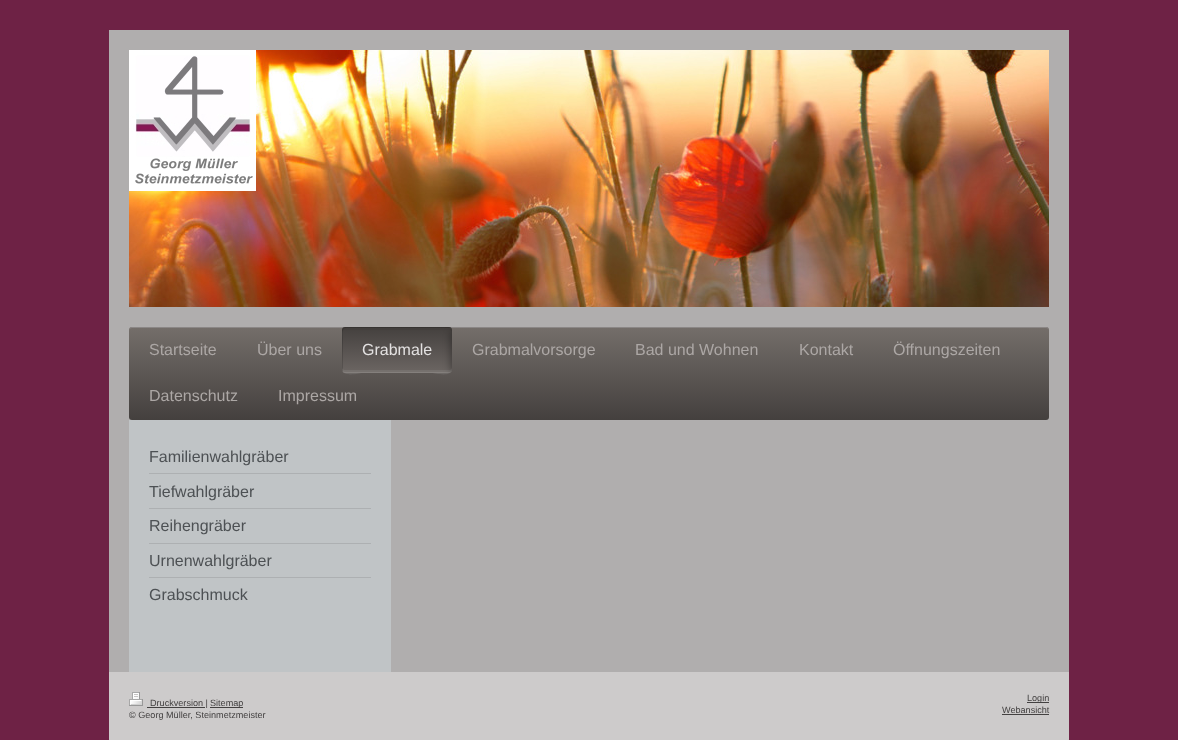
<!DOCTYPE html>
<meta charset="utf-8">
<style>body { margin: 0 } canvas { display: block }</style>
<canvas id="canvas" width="1178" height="740"></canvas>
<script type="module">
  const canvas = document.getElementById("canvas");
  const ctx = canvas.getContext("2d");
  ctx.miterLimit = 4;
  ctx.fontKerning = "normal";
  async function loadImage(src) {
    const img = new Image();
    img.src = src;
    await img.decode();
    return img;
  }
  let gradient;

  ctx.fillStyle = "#6e2245";
  ctx.fillRect(0, 0, 1178, 740);
  ctx.fillStyle = "#b0aeae";
  ctx.beginPath();
  ctx.moveTo(109, 30);
  ctx.lineTo(1069, 30);
  ctx.lineTo(1069, 739);
  ctx.bezierCurveTo(1069, 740.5, 1067.5, 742, 1066, 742);
  ctx.lineTo(112, 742);
  ctx.bezierCurveTo(110.5, 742, 109, 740.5, 109, 739);
  ctx.closePath();
  ctx.fill();
  ctx.drawImage(await loadImage("img1.png"), 129, 50, 920, 257);
  ctx.drawImage(await loadImage("img2.png"), 129, 50, 127, 141);
  gradient = ctx.createLinearGradient(129, 327, 129, 420);
  gradient.addColorStop(0, "#746e6a");
  gradient.addColorStop(1, "#44403e");
  ctx.fillStyle = gradient;
  ctx.beginPath();
  ctx.roundRect(129, 327, 920, 93, 3);
  ctx.fill();
  ctx.fillStyle = "#8b8786";
  ctx.beginPath();
  ctx.moveTo(132, 328);
  ctx.lineTo(1046, 328);
  ctx.bezierCurveTo(1048, 328, 1049, 329, 1049, 331);
  ctx.bezierCurveTo(1049, 329, 1048, 327, 1046, 327);
  ctx.lineTo(132, 327);
  ctx.bezierCurveTo(130, 327, 129, 329, 129, 331);
  ctx.bezierCurveTo(129, 329, 130, 328, 132, 328);
  ctx.closePath();
  ctx.fill();
  ctx.font = "16px Liberation Sans";
  ctx.fillStyle = "#aca7a5";
  ctx.fillText("Startseite", 149, 355);
  ctx.fillText("Über uns", 257, 355);
  gradient = ctx.createLinearGradient(342, 373, 342, 327);
  gradient.addColorStop(0, "#6c6663");
  gradient.addColorStop(1, "#44403e");
  ctx.fillStyle = gradient;
  ctx.beginPath();
  ctx.roundRect(342, 327, 110, 46, 3);
  ctx.fill();
  ctx.fillStyle = "rgba(0, 0, 0, 0.15)";
  ctx.beginPath();
  ctx.moveTo(346, 328);
  ctx.lineTo(451, 328);
  ctx.bezierCurveTo(451, 327, 450, 327, 449, 327);
  ctx.lineTo(345, 327);
  ctx.bezierCurveTo(343, 327, 342, 328, 342, 330);
  ctx.lineTo(342, 370);
  ctx.bezierCurveTo(342, 371, 342, 372, 343, 372);
  ctx.lineTo(343, 338);
  ctx.bezierCurveTo(343, 335, 341, 328, 346, 328);
  ctx.closePath();
  ctx.fill();
  ctx.fillStyle = "rgba(0, 0, 0, 0.04)";
  ctx.beginPath();
  ctx.moveTo(345, 330);
  ctx.lineTo(449, 330);
  ctx.bezierCurveTo(451, 330, 452, 331, 452, 333);
  ctx.lineTo(452, 330);
  ctx.bezierCurveTo(452, 328, 451, 327, 449, 327);
  ctx.lineTo(345, 327);
  ctx.bezierCurveTo(343, 327, 342, 328, 342, 330);
  ctx.lineTo(342, 333);
  ctx.bezierCurveTo(342, 331, 343, 330, 345, 330);
  ctx.closePath();
  ctx.fill();
  ctx.fillStyle = "rgba(255, 255, 255, 0.08)";
  ctx.beginPath();
  ctx.moveTo(342, 367);
  ctx.lineTo(342, 370);
  ctx.bezierCurveTo(342, 372, 343, 373, 345, 373);
  ctx.lineTo(449, 373);
  ctx.bezierCurveTo(451, 373, 452, 372, 452, 370);
  ctx.lineTo(452, 367);
  ctx.bezierCurveTo(452, 369, 451, 370, 449, 370);
  ctx.lineTo(345, 370);
  ctx.bezierCurveTo(343, 370, 342, 369, 342, 367);
  ctx.closePath();
  ctx.fill();
  ctx.fillStyle = "rgba(255, 255, 255, 0.1)";
  ctx.beginPath();
  ctx.moveTo(342, 369);
  ctx.bezierCurveTo(342, 378, 360, 373, 362, 373);
  ctx.lineTo(432, 373);
  ctx.bezierCurveTo(434, 373, 452, 378, 452, 369);
  ctx.bezierCurveTo(452, 371, 451, 372, 449, 372);
  ctx.lineTo(345, 372);
  ctx.bezierCurveTo(343, 372, 342, 371, 342, 369);
  ctx.closePath();
  ctx.fill();
  ctx.fillStyle = "#e3e1e1";
  ctx.fillText("Grabmale", 362, 355);
  ctx.save();
  ctx.beginPath();
  ctx.roundRect(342, 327, 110, 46, 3);
  ctx.clip();
  ctx.fillStyle = "rgba(0, 0, 0, 0.3)";
  ctx.filter = "blur(3.5px)";
  ctx.beginPath();
  ctx.roundRect(450, 329, 16, 46, 8);
  ctx.fill();
  ctx.filter = "none";
  ctx.restore();
  ctx.fillStyle = "#aca7a5";
  ctx.fillText("Grabmalvorsorge", 472, 355);
  ctx.fillText("Bad und Wohnen", 635, 355);
  ctx.fillText("Kontakt", 799, 355);
  ctx.fillText("Öffnungszeiten", 893, 355);
  ctx.fillText("Datenschutz", 149, 401);
  ctx.fillText("Impressum", 278, 401);
  ctx.fillStyle = "#c0c4c6";
  ctx.fillRect(129, 420, 262, 252);
  ctx.fillStyle = "#adb0b2";
  ctx.fillRect(149, 473, 222, 1);
  ctx.fillStyle = "#4d5154";
  ctx.fillText("Familienwahlgräber", 149, 462);
  ctx.fillStyle = "#adb0b2";
  ctx.fillRect(149, 508, 222, 1);
  ctx.fillStyle = "#4d5154";
  ctx.fillText("Tiefwahlgräber", 149, 497);
  ctx.fillStyle = "#adb0b2";
  ctx.fillRect(149, 543, 222, 1);
  ctx.fillStyle = "#4d5154";
  ctx.fillText("Reihengräber", 149, 531);
  ctx.fillStyle = "#adb0b2";
  ctx.fillRect(149, 577, 222, 1);
  ctx.fillStyle = "#4d5154";
  ctx.fillText("Urnenwahlgräber", 149, 566);
  ctx.fillText("Grabschmuck", 149, 600);
  ctx.fillStyle = "#cdcbcb";
  ctx.beginPath();
  ctx.moveTo(109, 672);
  ctx.lineTo(1069, 672);
  ctx.lineTo(1069, 739);
  ctx.bezierCurveTo(1069, 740.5, 1067.5, 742, 1066, 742);
  ctx.lineTo(112, 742);
  ctx.bezierCurveTo(110.5, 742, 109, 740.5, 109, 739);
  ctx.closePath();
  ctx.fill();
  ctx.drawImage(await loadImage("img3.png"), 129, 692, 14, 14);
  ctx.fillStyle = "#434141";
  ctx.fillRect(147, 707, 58, 1);
  ctx.font = "9.1px Liberation Sans";
  ctx.fillText("Druckversion |", 150, 706);
  ctx.fillRect(210, 707, 33, 1);
  ctx.fillText("Sitemap", 210, 706);
  ctx.fillText("© Georg Müller, Steinmetzmeister", 129, 718);
  ctx.fillRect(1027, 702, 22, 1);
  ctx.fillText("Login", 1027, 701);
  ctx.fillText("Webansicht", 1002, 713);
  ctx.fillRect(1002, 714, 47, 1);
</script>
